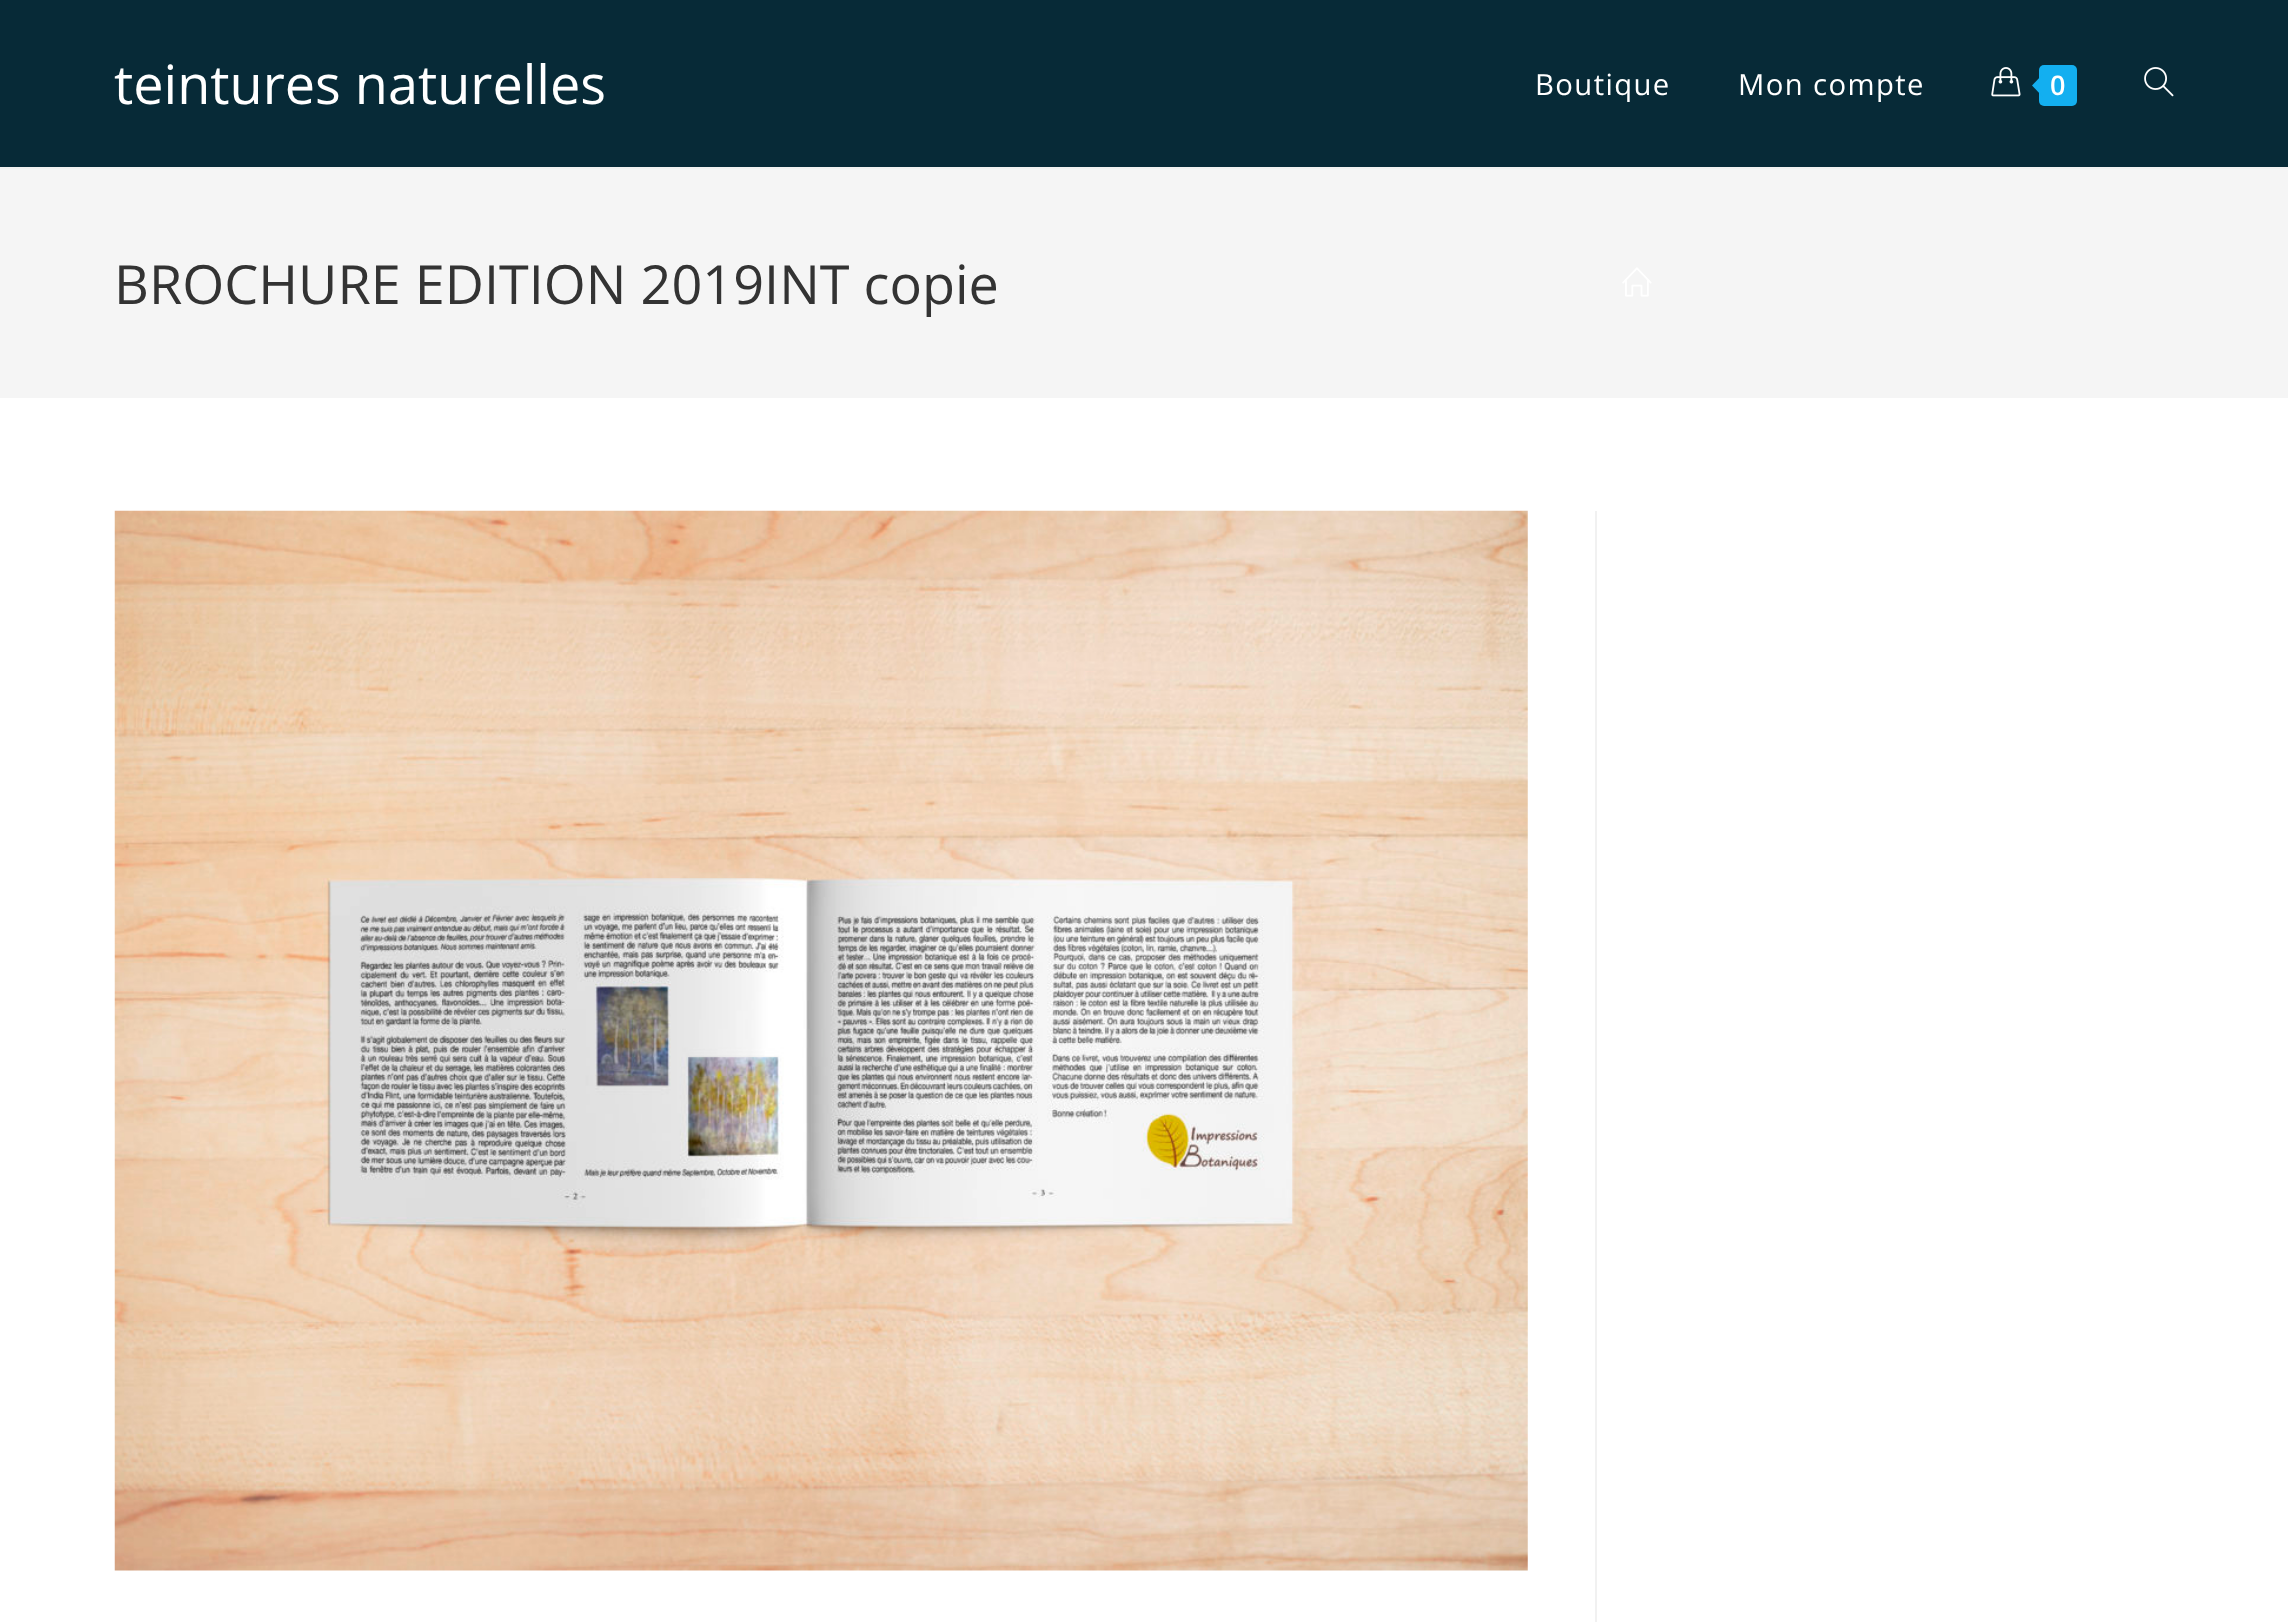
<!DOCTYPE html>
<meta charset="utf-8">
<style>body { margin: 0 } canvas { display: block }</style>
<canvas id="canvas" width="2288" height="1622"></canvas>
<script type="module">
  const canvas = document.getElementById("canvas");
  const ctx = canvas.getContext("2d");
  ctx.miterLimit = 4;
  ctx.fontKerning = "normal";
  async function loadImage(src) {
    const img = new Image();
    img.src = src;
    await img.decode();
    return img;
  }

  ctx.fillStyle = "#ffffff";
  ctx.fillRect(0, 0, 2288, 1622);
  ctx.fillStyle = "#072a37";
  ctx.fillRect(0, 0, 2288, 167);
  ctx.fillStyle = "#f1f1f1";
  ctx.fillRect(0, 167, 2288, 2);
  ctx.font = "54px Open Sans";
  ctx.fillStyle = "#ffffff";
  ctx.fillText("teintures naturelles", 114, 104);
  ctx.letterSpacing = "1.4px";
  ctx.font = "29.25px Open Sans";
  ctx.fillText("Boutique", 1535, 95);
  ctx.fillText("Mon compte", 1738, 95);
  ctx.drawImage(await loadImage("img1.png"), 1991, 67, 30, 30);
  ctx.fillStyle = "#13aff0";
  ctx.beginPath();
  ctx.roundRect(2039, 65, 38, 41, 5);
  ctx.fill();
  ctx.beginPath();
  ctx.moveTo(2043, 74);
  ctx.lineTo(2043, 97);
  ctx.lineTo(2032, 85.5);
  ctx.closePath();
  ctx.fill();
  ctx.letterSpacing = "0px";
  ctx.font = "600 27px Open Sans";
  ctx.fillStyle = "#ffffff";
  ctx.fillText("0", 2050, 95);
  ctx.drawImage(await loadImage("img2.png"), 2144, 67, 30, 30);
  ctx.fillStyle = "#f5f5f5";
  ctx.fillRect(0, 169, 2288, 229);
  ctx.font = "54px Open Sans";
  ctx.fillStyle = "#333333";
  ctx.fillText("BROCHURE EDITION 2019INT copie", 114, 304);
  ctx.drawImage(await loadImage("img3.png"), 1622, 267, 30, 30);
  ctx.fillStyle = "#f1f1f1";
  ctx.fillRect(1595, 511, 2, 1111);
  ctx.drawImage(await loadImage("img4.png"), 114, 510, 1414, 1061);
</script>
